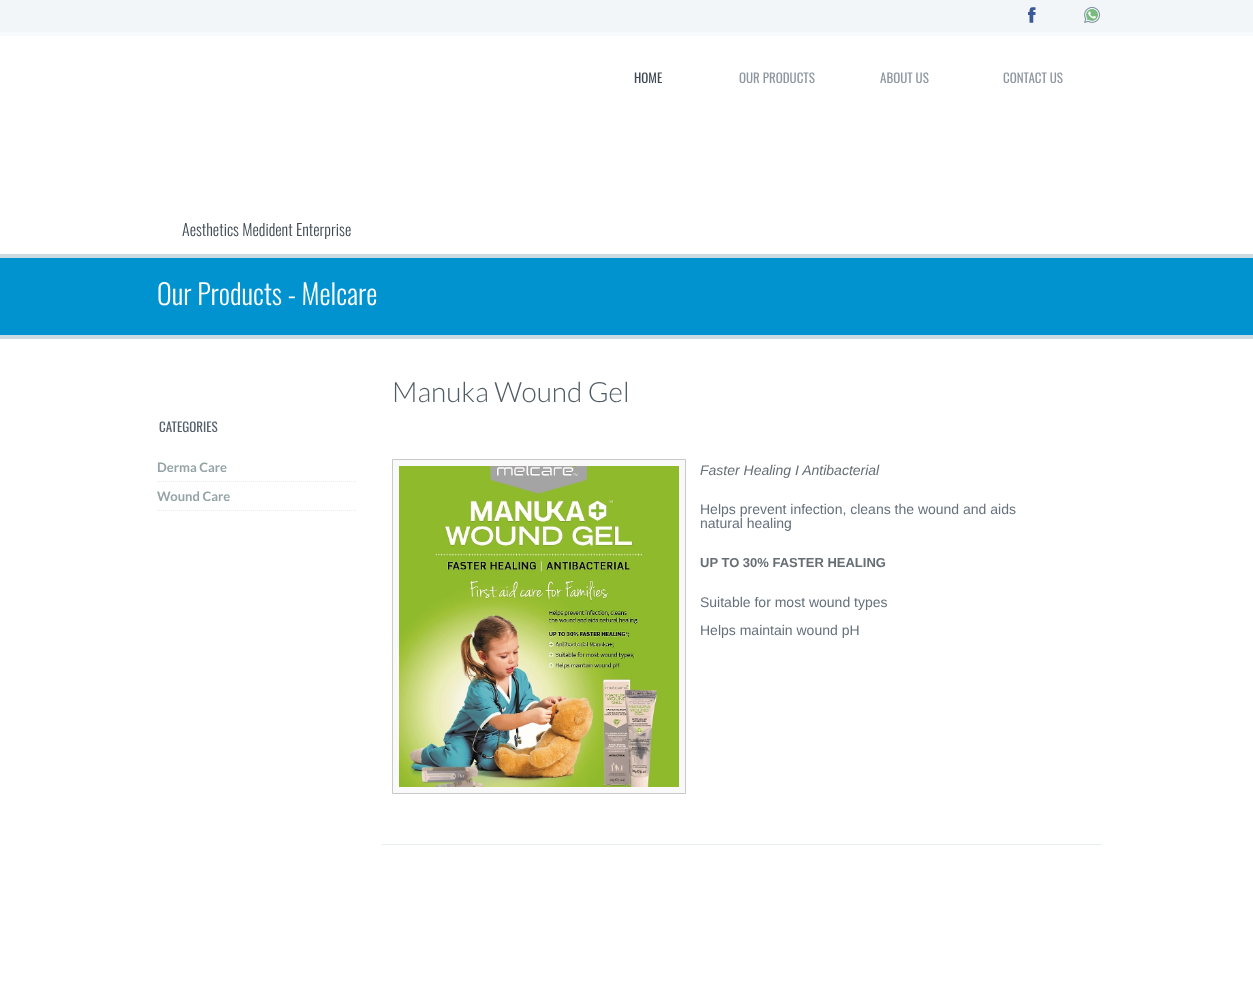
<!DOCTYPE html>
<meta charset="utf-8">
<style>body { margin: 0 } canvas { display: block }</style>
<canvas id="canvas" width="1253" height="996"></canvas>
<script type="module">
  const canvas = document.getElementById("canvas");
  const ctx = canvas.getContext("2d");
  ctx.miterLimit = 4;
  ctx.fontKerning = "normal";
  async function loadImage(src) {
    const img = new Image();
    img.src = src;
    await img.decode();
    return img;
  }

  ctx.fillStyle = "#ffffff";
  ctx.fillRect(0, 0, 1253, 996);
  ctx.fillStyle = "#f3f6f8";
  ctx.fillRect(0, 0, 1253, 32);
  ctx.fillStyle = "#f8fbfd";
  ctx.fillRect(0, 32, 1253, 4);
  ctx.drawImage(await loadImage("img1.png"), 1028, 7, 8, 16);
  ctx.drawImage(await loadImage("img2.png"), 1084, 7, 16, 16);
  ctx.font = "13px Oswald";
  ctx.fillStyle = "#3f4a53";
  ctx.fillText("HOME", 634, 83);
  ctx.fillStyle = "#8e97a0";
  ctx.fillText("OUR PRODUCTS", 739, 83);
  ctx.fillText("ABOUT US", 880, 83);
  ctx.fillText("CONTACT US", 1003, 83);
  ctx.font = "300 16px Oswald";
  ctx.fillStyle = "#3f4a53";
  ctx.fillText("Aesthetics Medident Enterprise", 182, 236);
  ctx.fillStyle = "#0093d0";
  ctx.fillRect(0, 258, 1253, 77);
  ctx.fillStyle = "#ccdae1";
  ctx.fillRect(0, 254, 1253, 4);
  ctx.fillRect(0, 335, 1253, 4);
  ctx.font = "300 28px Oswald";
  ctx.fillStyle = "#ffffff";
  ctx.fillText("Our Products - Melcare", 157, 305);
  ctx.font = "13px Oswald";
  ctx.fillStyle = "#54606b";
  ctx.fillText("CATEGORIES", 159, 432);
  ctx.beginPath();
  ctx.moveTo(157, 481.5);
  ctx.lineTo(357, 481.5);
  ctx.strokeStyle = "#e8edee";
  ctx.setLineDash([1, 1]);
  ctx.stroke();
  ctx.font = "bold 13px Lato";
  ctx.fillStyle = "#95a3a6";
  ctx.fillText("Derma Care", 157, 472);
  ctx.beginPath();
  ctx.moveTo(157, 510.5);
  ctx.lineTo(357, 510.5);
  ctx.stroke();
  ctx.fillText("Wound Care", 157, 501);
  ctx.font = "300 28px Lato";
  ctx.fillStyle = "#505c64";
  ctx.fillText("Manuka Wound Gel", 392, 402);
  ctx.fillStyle = "#f9f9f9";
  ctx.beginPath();
  ctx.rect(392.5, 459.5, 293, 334);
  ctx.fill();
  ctx.strokeStyle = "#c9c9c9";
  ctx.setLineDash([]);
  ctx.stroke();
  ctx.drawImage(await loadImage("img3.png"), 399, 466, 280, 321);
  ctx.font = "italic 14px Liberation Sans";
  ctx.fillStyle = "#666e74";
  ctx.fillText("Faster Healing I Antibacterial", 700, 475);
  ctx.font = "14px Liberation Sans";
  ctx.fillStyle = "#65707b";
  ctx.fillText("Helps prevent infection, cleans the wound and aids", 700, 514);
  ctx.fillText("natural healing", 700, 528);
  ctx.font = "bold 13px Liberation Sans";
  ctx.fillStyle = "#666e74";
  ctx.fillText("UP TO 30% FASTER HEALING", 700, 567);
  ctx.font = "14px Liberation Sans";
  ctx.fillStyle = "#65707b";
  ctx.fillText("Suitable for most wound types", 700, 607);
  ctx.fillText("Helps maintain wound pH", 700, 635);
  ctx.fillStyle = "#e8edee";
  ctx.fillRect(382, 844, 720, 1);
</script>
